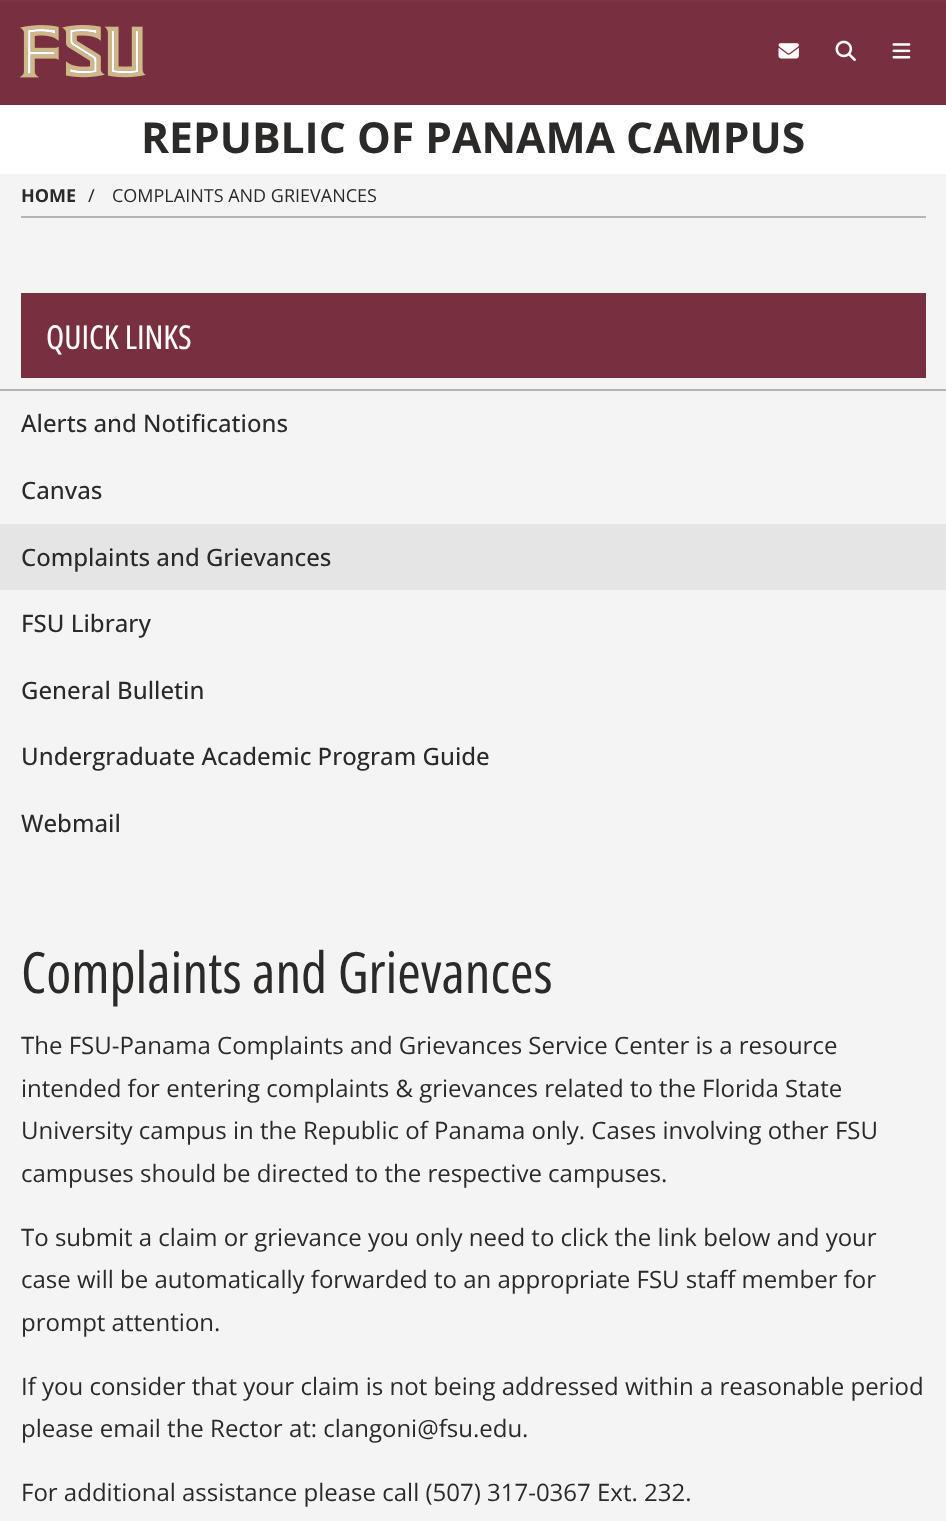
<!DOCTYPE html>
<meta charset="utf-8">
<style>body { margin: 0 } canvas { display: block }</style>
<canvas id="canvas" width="946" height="1521"></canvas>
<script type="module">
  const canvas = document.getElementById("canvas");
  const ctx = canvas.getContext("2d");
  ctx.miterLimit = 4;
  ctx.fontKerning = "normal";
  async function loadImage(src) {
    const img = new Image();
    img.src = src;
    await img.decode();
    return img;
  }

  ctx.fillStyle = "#782f40";
  ctx.fillRect(0, 0, 946, 1521);
  ctx.fillStyle = "#7c3546";
  ctx.fillRect(0, 0, 946, 2);
  ctx.fillStyle = "#722d3d";
  ctx.fillRect(0, 104, 946, 1);
  ctx.drawImage(await loadImage("img1.png"), 19, 25, 127, 53);
  ctx.drawImage(await loadImage("img2.png"), 778, 43, 21, 16);
  ctx.drawImage(await loadImage("img3.png"), 835, 40, 21, 21);
  ctx.drawImage(await loadImage("img4.png"), 892, 43, 19, 16);
  ctx.fillStyle = "#ffffff";
  ctx.fillRect(0, 105, 946, 69);
  ctx.fillStyle = "#f3f2f2";
  ctx.fillRect(0, 174, 946, 2);
  ctx.font = "bold 42.6px Open Sans";
  ctx.fillStyle = "#2c2a29";
  ctx.fillText("REPUBLIC OF PANAMA CAMPUS", 141, 153);
  ctx.fillStyle = "#f4f4f4";
  ctx.fillRect(0, 176, 946, 1345);
  ctx.font = "bold 18px Open Sans";
  ctx.fillStyle = "#2c2a29";
  ctx.fillText("HOME", 21, 202);
  ctx.font = "18px Open Sans";
  ctx.fillText("/", 88, 202);
  ctx.font = "18px 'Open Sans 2'";
  ctx.fillText("COMPLAINTS AND GRIEVANCES", 112, 202);
  ctx.fillStyle = "#b5b5b4";
  ctx.fillRect(21, 216, 905, 2);
  ctx.fillStyle = "#782f40";
  ctx.fillRect(21, 293, 905, 85);
  ctx.font = "33px 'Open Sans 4'";
  ctx.fillStyle = "#fdfcfc";
  ctx.fillText("QUICK LINKS", 46, 349);
  ctx.fillStyle = "#b5b5b4";
  ctx.fillRect(0, 389, 946, 2);
  ctx.font = "500 24px Open Sans";
  ctx.fillStyle = "#2c2a29";
  ctx.fillText("Alerts and Notifications", 21, 432);
  ctx.fillText("Canvas", 21, 499);
  ctx.fillStyle = "#e5e5e5";
  ctx.fillRect(0, 524, 946, 66);
  ctx.fillStyle = "#2c2a29";
  ctx.fillText("Complaints and Grievances", 21, 566);
  ctx.fillText("FSU Library", 21, 632);
  ctx.fillText("General Bulletin", 21, 699);
  ctx.fillText("Undergraduate Academic Program Guide", 21, 765);
  ctx.fillText("Webmail", 21, 832);
  ctx.font = "56.9px 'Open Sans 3'";
  ctx.fillText("Complaints and Grievances", 21, 993);
  ctx.font = "24px 'Open Sans 2'";
  ctx.fillText("The FSU-Panama Complaints and Grievances Service Center is a resource", 21, 1054);
  ctx.fillText("intended for entering complaints & grievances related to the Florida State", 21, 1097);
  ctx.fillText("University campus in the Republic of Panama only. Cases involving other FSU", 21, 1139);
  ctx.fillText("campuses should be directed to the respective campuses.", 21, 1182);
  ctx.fillText("To submit a claim or grievance you only need to click the link below and your", 21, 1246);
  ctx.fillText("case will be automatically forwarded to an appropriate FSU staff member for", 21, 1288);
  ctx.fillText("prompt attention.", 21, 1331);
  ctx.fillText("If you consider that your claim is not being addressed within a reasonable period", 21, 1395);
  ctx.fillText("please email the Rector at: clangoni@fsu.edu.", 21, 1437);
  ctx.fillText("For additional assistance please call (507) 317-0367 Ext. 232.", 21, 1501);
</script>
